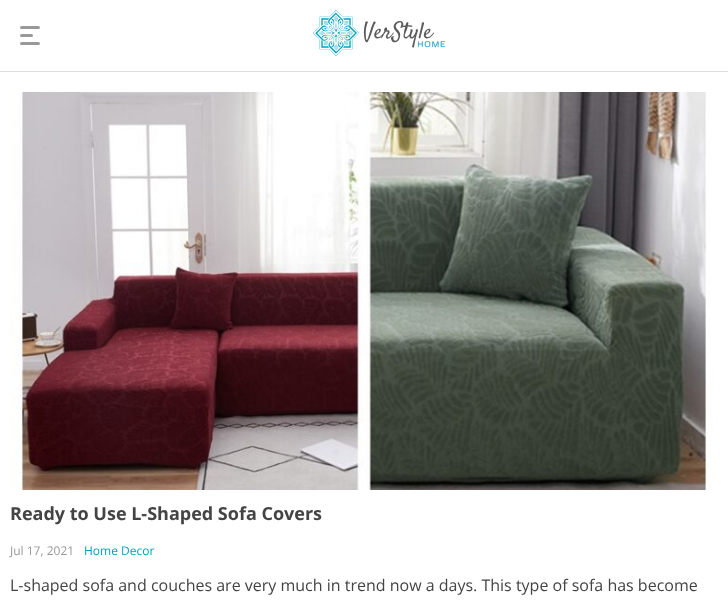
<!DOCTYPE html>
<meta charset="utf-8">
<style>body { margin: 0 } canvas { display: block }</style>
<canvas id="canvas" width="728" height="608"></canvas>
<script type="module">
  const canvas = document.getElementById("canvas");
  const ctx = canvas.getContext("2d");
  ctx.miterLimit = 4;
  ctx.fontKerning = "normal";
  async function loadImage(src) {
    const img = new Image();
    img.src = src;
    await img.decode();
    return img;
  }

  ctx.fillStyle = "#ffffff";
  ctx.fillRect(0, 0, 728, 608);
  ctx.fillStyle = "#dfdfdf";
  ctx.fillRect(0, 71, 728, 1);
  ctx.fillStyle = "#999999";
  ctx.beginPath();
  ctx.roundRect(20, 26, 20, 3, 1.5);
  ctx.fill();
  ctx.beginPath();
  ctx.roundRect(20, 34, 13, 3, 1.5);
  ctx.fill();
  ctx.beginPath();
  ctx.roundRect(20, 42, 20, 3, 1.5);
  ctx.fill();
  ctx.drawImage(await loadImage("img1.png"), 313, 10, 132, 46);
  ctx.drawImage(await loadImage("img2.png"), 10, 92, 708, 398);
  ctx.font = "bold 18px Open Sans";
  ctx.fillStyle = "#444444";
  ctx.fillText("Ready to Use L-Shaped Sofa Covers", 10, 520);
  ctx.font = "12px Open Sans";
  ctx.fillStyle = "#999999";
  ctx.fillText("Jul 17, 2021", 10, 555);
  ctx.fillStyle = "#02a3c0";
  ctx.fillText("Home Decor", 84, 555);
  ctx.font = "16px Open Sans";
  ctx.fillStyle = "#444444";
  ctx.fillText("L-shaped sofa and couches are very much in trend now a days. This type of sofa has become", 10, 591);
</script>
